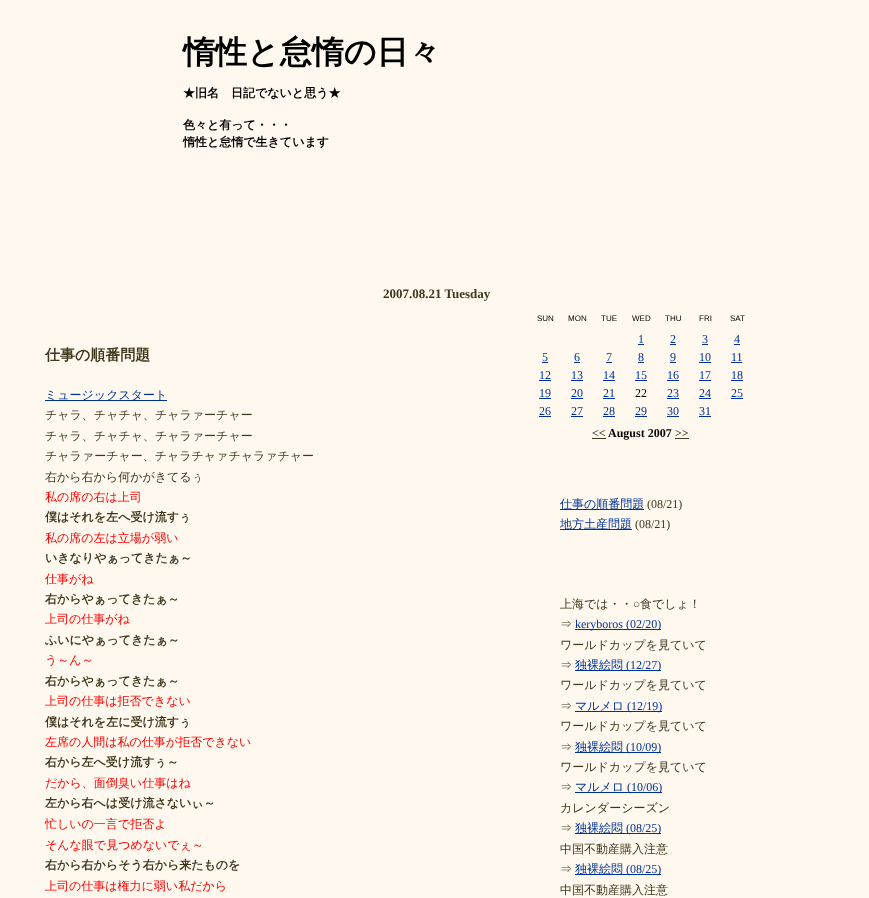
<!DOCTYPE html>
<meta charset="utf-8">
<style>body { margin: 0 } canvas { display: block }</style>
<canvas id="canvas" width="869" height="898"></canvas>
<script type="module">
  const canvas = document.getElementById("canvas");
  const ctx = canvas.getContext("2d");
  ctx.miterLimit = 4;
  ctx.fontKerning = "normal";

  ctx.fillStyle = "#fef8ee";
  ctx.fillRect(0, 0, 869, 898);
  ctx.font = "bold 32px WenQuanYi Zen Hei";
  ctx.fillStyle = "#000000";
  ctx.fillText("惰性と怠惰の日々", 183, 63);
  ctx.font = "bold 12px WenQuanYi Zen Hei";
  ctx.fillText("★旧名　日記でないと思う★", 183, 97);
  ctx.fillText("色々と有って・・・", 183, 129);
  ctx.fillText("惰性と怠惰で生きています", 183, 146);
  ctx.font = "bold 13px Liberation Serif";
  ctx.fillStyle = "#40361d";
  ctx.fillText("2007.08.21 Tuesday", 383, 298);
  ctx.font = "bold 15px WenQuanYi Zen Hei";
  ctx.fillText("仕事の順番問題", 45, 360);
  ctx.fillStyle = "#003399";
  ctx.fillRect(45, 400, 122, 1);
  ctx.font = "500 12px WenQuanYi Zen Hei";
  ctx.fillText("ミュージックスタート", 45, 399);
  ctx.fillStyle = "#40361d";
  ctx.fillText("チャラ、チャチャ、チャラァーチャー", 45, 419);
  ctx.fillText("チャラ、チャチャ、チャラァーチャー", 45, 440);
  ctx.fillText("チャラァーチャー、チャラチャァチャラァチャー", 45, 460);
  ctx.fillText("右から右から何かがきてるぅ", 45, 481);
  ctx.fillStyle = "#ff0000";
  ctx.fillText("私の席の右は上司", 45, 501);
  ctx.font = "bold 12px WenQuanYi Zen Hei";
  ctx.fillStyle = "#40361d";
  ctx.fillText("僕はそれを左へ受け流すぅ", 45, 521);
  ctx.font = "500 12px WenQuanYi Zen Hei";
  ctx.fillStyle = "#ff0000";
  ctx.fillText("私の席の左は立場が弱い", 45, 542);
  ctx.font = "bold 12px WenQuanYi Zen Hei";
  ctx.fillStyle = "#40361d";
  ctx.fillText("いきなりやぁってきたぁ～", 45, 562);
  ctx.font = "500 12px WenQuanYi Zen Hei";
  ctx.fillStyle = "#ff0000";
  ctx.fillText("仕事がね", 45, 583);
  ctx.font = "bold 12px WenQuanYi Zen Hei";
  ctx.fillStyle = "#40361d";
  ctx.fillText("右からやぁってきたぁ～", 45, 603);
  ctx.font = "500 12px WenQuanYi Zen Hei";
  ctx.fillStyle = "#ff0000";
  ctx.fillText("上司の仕事がね", 45, 623);
  ctx.font = "bold 12px WenQuanYi Zen Hei";
  ctx.fillStyle = "#40361d";
  ctx.fillText("ふいにやぁってきたぁ～", 45, 644);
  ctx.font = "500 12px WenQuanYi Zen Hei";
  ctx.fillStyle = "#ff0000";
  ctx.fillText("う～ん～", 45, 664);
  ctx.font = "bold 12px WenQuanYi Zen Hei";
  ctx.fillStyle = "#40361d";
  ctx.fillText("右からやぁってきたぁ～", 45, 685);
  ctx.font = "500 12px WenQuanYi Zen Hei";
  ctx.fillStyle = "#ff0000";
  ctx.fillText("上司の仕事は拒否できない", 45, 705);
  ctx.font = "bold 12px WenQuanYi Zen Hei";
  ctx.fillStyle = "#40361d";
  ctx.fillText("僕はそれを左に受け流すぅ", 45, 726);
  ctx.font = "500 12px WenQuanYi Zen Hei";
  ctx.fillStyle = "#ff0000";
  ctx.fillText("左席の人間は私の仕事が拒否できない", 45, 746);
  ctx.font = "bold 12px WenQuanYi Zen Hei";
  ctx.fillStyle = "#40361d";
  ctx.fillText("右から左へ受け流すぅ～", 45, 766);
  ctx.font = "500 12px WenQuanYi Zen Hei";
  ctx.fillStyle = "#ff0000";
  ctx.fillText("だから、面倒臭い仕事はね", 45, 787);
  ctx.font = "bold 12px WenQuanYi Zen Hei";
  ctx.fillStyle = "#40361d";
  ctx.fillText("左から右へは受け流さないぃ～", 45, 807);
  ctx.font = "500 12px WenQuanYi Zen Hei";
  ctx.fillStyle = "#ff0000";
  ctx.fillText("忙しいの一言で拒否よ", 45, 828);
  ctx.fillText("そんな眼で見つめないでぇ～", 45, 849);
  ctx.font = "bold 12px WenQuanYi Zen Hei";
  ctx.fillStyle = "#40361d";
  ctx.fillText("右から右からそう右から来たものを", 45, 869);
  ctx.font = "500 12px WenQuanYi Zen Hei";
  ctx.fillStyle = "#ff0000";
  ctx.fillText("上司の仕事は権力に弱い私だから", 45, 890);
  ctx.font = "8px Liberation Sans";
  ctx.fillStyle = "#000000";
  ctx.fillText("SUN", 537, 321);
  ctx.fillText("MON", 568, 321);
  ctx.fillText("TUE", 601, 321);
  ctx.fillText("WED", 632, 321);
  ctx.fillText("THU", 665, 321);
  ctx.fillText("FRI", 699, 321);
  ctx.fillText("SAT", 730, 321);
  ctx.font = "12px Liberation Serif";
  ctx.fillStyle = "#003399";
  ctx.fillText("1", 638, 343);
  ctx.fillRect(638, 344, 6, 1);
  ctx.fillText("2", 670, 343);
  ctx.fillRect(670, 344, 6, 1);
  ctx.fillText("3", 702, 343);
  ctx.fillRect(702, 344, 6, 1);
  ctx.fillText("4", 734, 343);
  ctx.fillRect(734, 344, 6, 1);
  ctx.fillText("5", 542, 361);
  ctx.fillRect(542, 362, 6, 1);
  ctx.fillText("6", 574, 361);
  ctx.fillRect(574, 362, 6, 1);
  ctx.fillText("7", 606, 361);
  ctx.fillRect(606, 362, 6, 1);
  ctx.fillText("8", 638, 361);
  ctx.fillRect(638, 362, 6, 1);
  ctx.fillText("9", 670, 361);
  ctx.fillRect(670, 362, 6, 1);
  ctx.fillText("10", 699, 361);
  ctx.fillRect(699, 362, 12, 1);
  ctx.fillText("11", 731, 361);
  ctx.fillRect(731, 362, 11, 1);
  ctx.fillText("12", 539, 379);
  ctx.fillRect(539, 380, 12, 1);
  ctx.fillText("13", 571, 379);
  ctx.fillRect(571, 380, 12, 1);
  ctx.fillText("14", 603, 379);
  ctx.fillRect(603, 380, 12, 1);
  ctx.fillText("15", 635, 379);
  ctx.fillRect(635, 380, 12, 1);
  ctx.fillText("16", 667, 379);
  ctx.fillRect(667, 380, 12, 1);
  ctx.fillText("17", 699, 379);
  ctx.fillRect(699, 380, 12, 1);
  ctx.fillText("18", 731, 379);
  ctx.fillRect(731, 380, 12, 1);
  ctx.fillText("19", 539, 397);
  ctx.fillRect(539, 398, 12, 1);
  ctx.fillText("20", 571, 397);
  ctx.fillRect(571, 398, 12, 1);
  ctx.fillText("21", 603, 397);
  ctx.fillRect(603, 398, 12, 1);
  ctx.fillStyle = "#000000";
  ctx.fillText("22", 635, 397);
  ctx.fillStyle = "#003399";
  ctx.fillText("23", 667, 397);
  ctx.fillRect(667, 398, 12, 1);
  ctx.fillText("24", 699, 397);
  ctx.fillRect(699, 398, 12, 1);
  ctx.fillText("25", 731, 397);
  ctx.fillRect(731, 398, 12, 1);
  ctx.fillText("26", 539, 415);
  ctx.fillRect(539, 416, 12, 1);
  ctx.fillText("27", 571, 415);
  ctx.fillRect(571, 416, 12, 1);
  ctx.fillText("28", 603, 415);
  ctx.fillRect(603, 416, 12, 1);
  ctx.fillText("29", 635, 415);
  ctx.fillRect(635, 416, 12, 1);
  ctx.fillText("30", 667, 415);
  ctx.fillRect(667, 416, 12, 1);
  ctx.fillText("31", 699, 415);
  ctx.fillRect(699, 416, 12, 1);
  ctx.font = "bold 12px Liberation Serif";
  ctx.fillStyle = "#40361d";
  ctx.fillText("<<", 592, 437);
  ctx.fillRect(592, 438, 14, 1);
  ctx.fillStyle = "#000000";
  ctx.fillText("August 2007", 608, 437);
  ctx.fillStyle = "#40361d";
  ctx.fillText(">>", 675, 437);
  ctx.fillRect(675, 438, 14, 1);
  ctx.fillStyle = "#003399";
  ctx.fillRect(560, 509, 84, 1);
  ctx.font = "500 12px WenQuanYi Zen Hei";
  ctx.fillText("仕事の順番問題", 560, 508);
  ctx.font = "12px Liberation Serif";
  ctx.fillStyle = "#40361d";
  ctx.fillText("(08/21)", 647, 508);
  ctx.fillStyle = "#003399";
  ctx.fillRect(560, 529, 72, 1);
  ctx.font = "500 12px WenQuanYi Zen Hei";
  ctx.fillText("地方土産問題", 560, 528);
  ctx.font = "12px Liberation Serif";
  ctx.fillStyle = "#40361d";
  ctx.fillText("(08/21)", 635, 528);
  ctx.font = "500 12px WenQuanYi Zen Hei";
  ctx.fillText("上海では・・", 560, 608);
  ctx.font = "12px Liberation Serif";
  ctx.fillText("○", 633, 608);
  ctx.font = "500 12px WenQuanYi Zen Hei";
  ctx.fillText("食でしょ！", 640, 608);
  ctx.fillText("⇒", 560, 628);
  ctx.fillStyle = "#003399";
  ctx.fillRect(575, 629, 86, 1);
  ctx.font = "12px Liberation Serif";
  ctx.fillText("keryboros (02/20)", 575, 628);
  ctx.font = "500 12px WenQuanYi Zen Hei";
  ctx.fillStyle = "#40361d";
  ctx.fillText("ワールドカップを見ていて", 560, 649);
  ctx.fillText("⇒", 560, 669);
  ctx.fillStyle = "#003399";
  ctx.fillRect(575, 670, 86, 1);
  ctx.fillText("独裸絵悶", 575, 669);
  ctx.font = "12px Liberation Serif";
  ctx.fillText("(12/27)", 626, 669);
  ctx.font = "500 12px WenQuanYi Zen Hei";
  ctx.fillStyle = "#40361d";
  ctx.fillText("ワールドカップを見ていて", 560, 689);
  ctx.fillText("⇒", 560, 710);
  ctx.fillStyle = "#003399";
  ctx.fillText("マルメロ", 575, 710);
  ctx.fillRect(575, 711, 87, 1);
  ctx.font = "12px Liberation Serif";
  ctx.fillText("(12/19)", 627, 710);
  ctx.font = "500 12px WenQuanYi Zen Hei";
  ctx.fillStyle = "#40361d";
  ctx.fillText("ワールドカップを見ていて", 560, 730);
  ctx.fillText("⇒", 560, 751);
  ctx.fillStyle = "#003399";
  ctx.fillRect(575, 752, 86, 1);
  ctx.fillText("独裸絵悶", 575, 751);
  ctx.font = "12px Liberation Serif";
  ctx.fillText("(10/09)", 626, 751);
  ctx.font = "500 12px WenQuanYi Zen Hei";
  ctx.fillStyle = "#40361d";
  ctx.fillText("ワールドカップを見ていて", 560, 771);
  ctx.fillText("⇒", 560, 791);
  ctx.fillStyle = "#003399";
  ctx.fillText("マルメロ", 575, 791);
  ctx.fillRect(575, 792, 87, 1);
  ctx.font = "12px Liberation Serif";
  ctx.fillText("(10/06)", 627, 791);
  ctx.font = "500 12px WenQuanYi Zen Hei";
  ctx.fillStyle = "#40361d";
  ctx.fillText("カレンダーシーズン", 560, 812);
  ctx.fillText("⇒", 560, 832);
  ctx.fillStyle = "#003399";
  ctx.fillRect(575, 833, 86, 1);
  ctx.fillText("独裸絵悶", 575, 832);
  ctx.font = "12px Liberation Serif";
  ctx.fillText("(08/25)", 626, 832);
  ctx.font = "500 12px WenQuanYi Zen Hei";
  ctx.fillStyle = "#40361d";
  ctx.fillText("中国不動産購入注意", 560, 853);
  ctx.fillText("⇒", 560, 873);
  ctx.fillStyle = "#003399";
  ctx.fillRect(575, 874, 86, 1);
  ctx.fillText("独裸絵悶", 575, 873);
  ctx.font = "12px Liberation Serif";
  ctx.fillText("(08/25)", 626, 873);
  ctx.font = "500 12px WenQuanYi Zen Hei";
  ctx.fillStyle = "#40361d";
  ctx.fillText("中国不動産購入注意", 560, 894);
</script>
